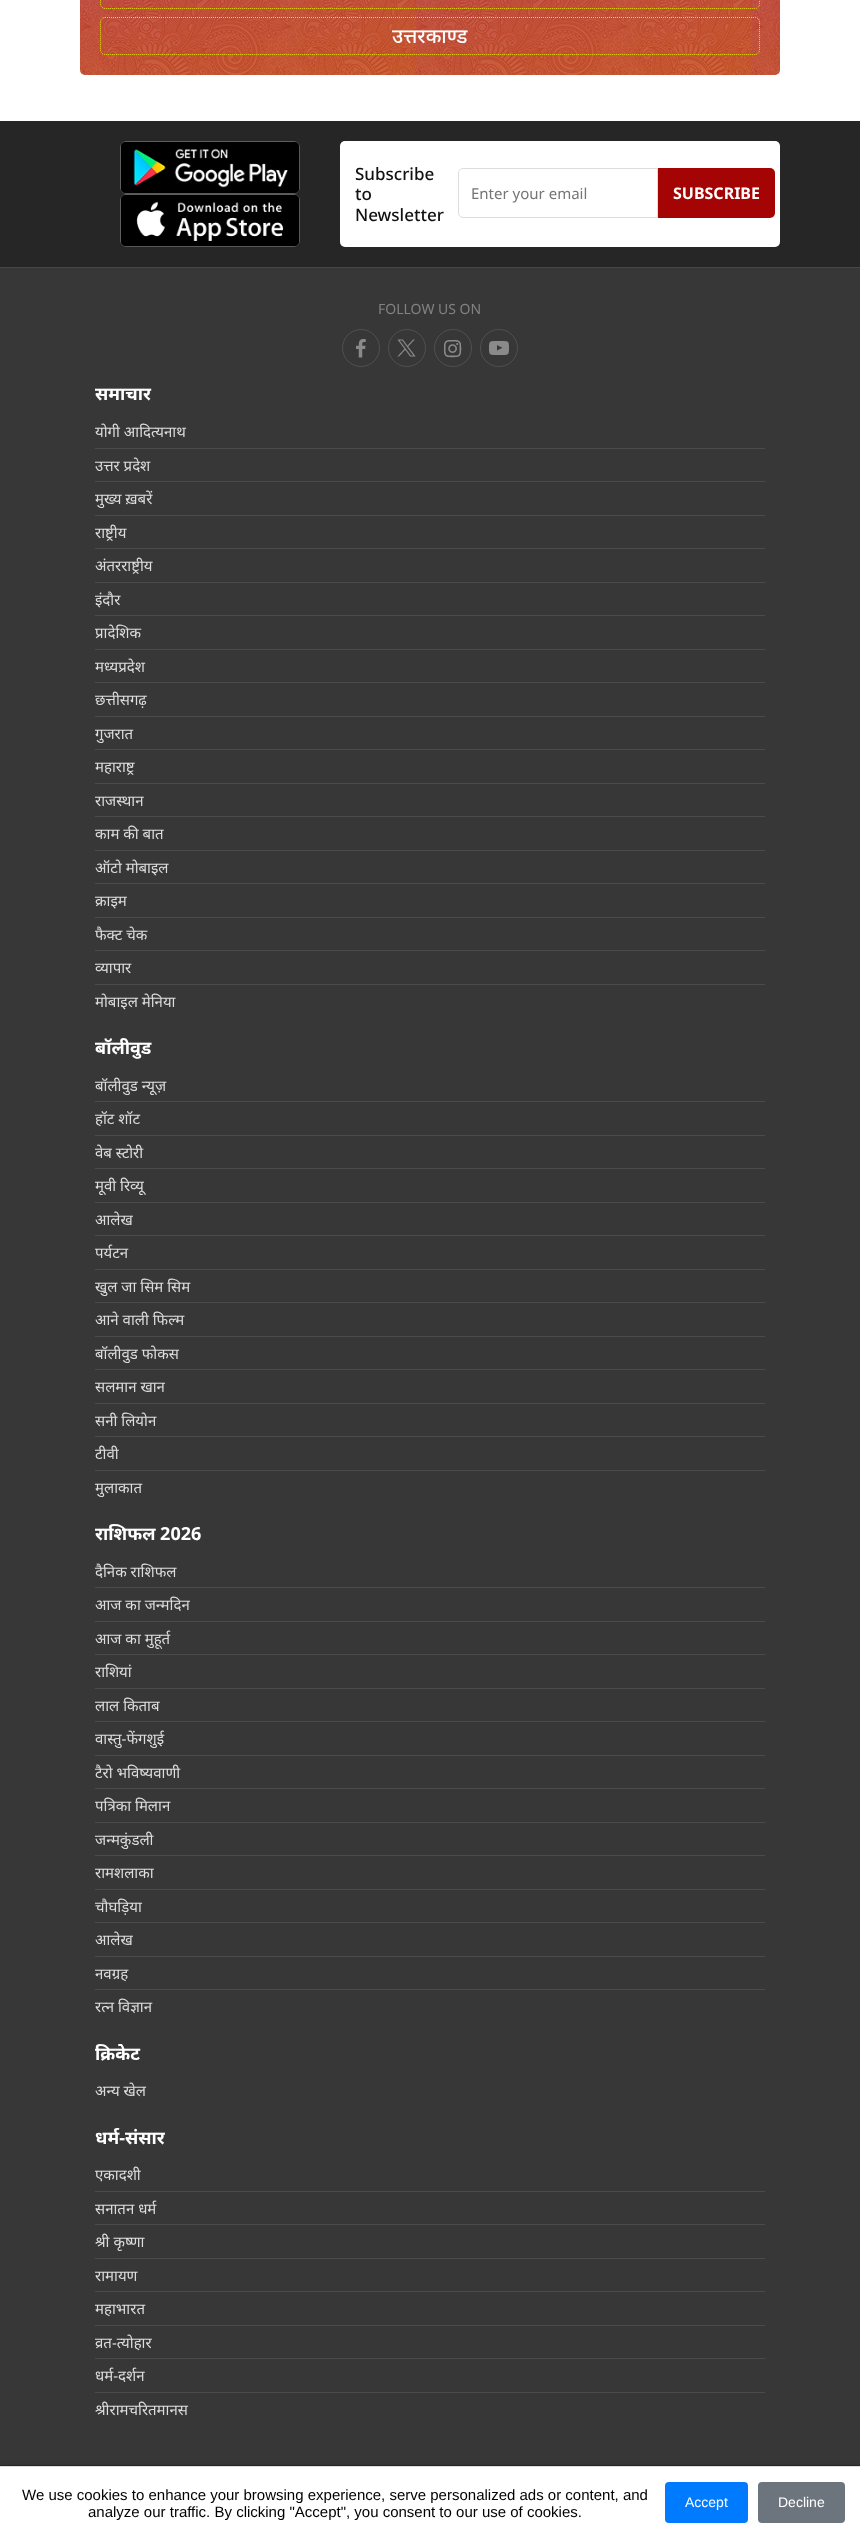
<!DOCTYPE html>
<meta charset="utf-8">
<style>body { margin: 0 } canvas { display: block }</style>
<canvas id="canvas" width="860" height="2538"></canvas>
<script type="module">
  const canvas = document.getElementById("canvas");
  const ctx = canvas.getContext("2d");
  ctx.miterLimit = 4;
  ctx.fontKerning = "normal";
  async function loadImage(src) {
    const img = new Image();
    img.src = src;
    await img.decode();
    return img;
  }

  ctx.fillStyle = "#ffffff";
  ctx.fillRect(0, 0, 860, 2538);
  ctx.drawImage(await loadImage("img1.png"), 80, 0, 700, 75);
  ctx.beginPath();
  ctx.moveTo(105, -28.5);
  ctx.lineTo(755, -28.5);
  ctx.bezierCurveTo(757.5, -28.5, 759.5, -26.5, 759.5, -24);
  ctx.lineTo(759.5, 4);
  ctx.bezierCurveTo(759.5, 6.5, 757.5, 8.5, 755, 8.5);
  ctx.lineTo(105, 8.5);
  ctx.bezierCurveTo(102.5, 8.5, 100.5, 6.5, 100.5, 4);
  ctx.lineTo(100.5, -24);
  ctx.bezierCurveTo(100.5, -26.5, 102.5, -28.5, 105, -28.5);
  ctx.closePath();
  ctx.strokeStyle = "#dde500";
  ctx.setLineDash([1, 1]);
  ctx.stroke();
  ctx.beginPath();
  ctx.moveTo(105, 17.5);
  ctx.lineTo(755, 17.5);
  ctx.bezierCurveTo(757.5, 17.5, 759.5, 19.5, 759.5, 22);
  ctx.lineTo(759.5, 50);
  ctx.bezierCurveTo(759.5, 52.5, 757.5, 54.5, 755, 54.5);
  ctx.lineTo(105, 54.5);
  ctx.bezierCurveTo(102.5, 54.5, 100.5, 52.5, 100.5, 50);
  ctx.lineTo(100.5, 22);
  ctx.bezierCurveTo(100.5, 19.5, 102.5, 17.5, 105, 17.5);
  ctx.closePath();
  ctx.stroke();
  ctx.font = "500 20px Noto Sans";
  ctx.fillText("उत्तरकाण्ड", 392, 43);
  ctx.fillStyle = "#262626";
  ctx.fillRect(0, 121, 860, 146);
  ctx.drawImage(await loadImage("img2.png"), 120, 141, 180, 53);
  ctx.drawImage(await loadImage("img3.png"), 120, 194, 180, 53);
  ctx.fillStyle = "#ffffff";
  ctx.beginPath();
  ctx.roundRect(340, 141, 440, 106, 5);
  ctx.fill();
  ctx.font = "500 17px Noto Sans";
  ctx.fillStyle = "#111111";
  ctx.fillText("Subscribe", 355, 180);
  ctx.fillText("to", 355, 200);
  ctx.fillText("Newsletter", 355, 221);
  ctx.beginPath();
  ctx.roundRect(458.5, 168.5, 199, 49, [4.5, 0, 0, 4.5]);
  ctx.strokeStyle = "#dddddd";
  ctx.setLineDash([]);
  ctx.stroke();
  ctx.font = "15px Noto Sans";
  ctx.fillStyle = "#757575";
  ctx.fillText("Enter your email", 471, 199);
  ctx.fillStyle = "#a50404";
  ctx.beginPath();
  ctx.roundRect(658, 168, 117, 50, [0, 5, 5, 0]);
  ctx.fill();
  ctx.font = "bold 16px Noto Sans";
  ctx.fillStyle = "#ffffff";
  ctx.fillText("SUBSCRIBE", 673, 199);
  ctx.fillStyle = "#373737";
  ctx.fillRect(0, 268, 860, 2197);
  ctx.fillStyle = "#474747";
  ctx.fillRect(0, 267, 860, 1);
  ctx.font = "14px Noto Sans";
  ctx.fillStyle = "#828282";
  ctx.fillText("FOLLOW US ON", 378, 314);
  ctx.beginPath();
  ctx.arc(361, 348, 18.5, 0, Math.PI * 2);
  ctx.strokeStyle = "#505050";
  ctx.stroke();
  ctx.drawImage(await loadImage("img4.png"), 356, 339, 10, 19);
  ctx.beginPath();
  ctx.arc(407, 348, 18.5, 0, Math.PI * 2);
  ctx.stroke();
  ctx.drawImage(await loadImage("img5.png"), 397, 339, 19, 18);
  ctx.beginPath();
  ctx.arc(453, 348, 18.5, 0, Math.PI * 2);
  ctx.stroke();
  ctx.drawImage(await loadImage("img6.png"), 444, 340, 18, 18);
  ctx.beginPath();
  ctx.arc(499, 348, 18.5, 0, Math.PI * 2);
  ctx.stroke();
  ctx.drawImage(await loadImage("img7.png"), 489, 341, 20, 14);
  ctx.font = "bold 18px Noto Sans";
  ctx.fillStyle = "#ffffff";
  ctx.fillText("समाचार", 95, 400);
  ctx.fillStyle = "#4b4b4b";
  ctx.fillRect(95, 448, 670, 1);
  ctx.font = "15px Noto Sans";
  ctx.fillStyle = "#dddddd";
  ctx.fillText("योगी आदित्यनाथ", 95, 437);
  ctx.fillStyle = "#4b4b4b";
  ctx.fillRect(95, 481, 670, 1);
  ctx.fillStyle = "#dddddd";
  ctx.fillText("उत्तर प्रदेश", 95, 471);
  ctx.fillStyle = "#4b4b4b";
  ctx.fillRect(95, 515, 670, 1);
  ctx.fillStyle = "#dddddd";
  ctx.fillText("मुख्य ख़बरें", 95, 504);
  ctx.fillStyle = "#4b4b4b";
  ctx.fillRect(95, 548, 670, 1);
  ctx.fillStyle = "#dddddd";
  ctx.fillText("राष्ट्रीय", 95, 538);
  ctx.fillStyle = "#4b4b4b";
  ctx.fillRect(95, 582, 670, 1);
  ctx.fillStyle = "#dddddd";
  ctx.fillText("अंतरराष्ट्रीय", 95, 571);
  ctx.fillStyle = "#4b4b4b";
  ctx.fillRect(95, 615, 670, 1);
  ctx.fillStyle = "#dddddd";
  ctx.fillText("इंदौर", 95, 605);
  ctx.fillStyle = "#4b4b4b";
  ctx.fillRect(95, 649, 670, 1);
  ctx.fillStyle = "#dddddd";
  ctx.fillText("प्रादेशिक", 95, 638);
  ctx.fillStyle = "#4b4b4b";
  ctx.fillRect(95, 682, 670, 1);
  ctx.fillStyle = "#dddddd";
  ctx.fillText("मध्यप्रदेश", 95, 672);
  ctx.fillStyle = "#4b4b4b";
  ctx.fillRect(95, 716, 670, 1);
  ctx.fillStyle = "#dddddd";
  ctx.fillText("छत्तीसगढ़", 95, 705);
  ctx.fillStyle = "#4b4b4b";
  ctx.fillRect(95, 749, 670, 1);
  ctx.fillStyle = "#dddddd";
  ctx.fillText("गुजरात", 95, 739);
  ctx.fillStyle = "#4b4b4b";
  ctx.fillRect(95, 783, 670, 1);
  ctx.fillStyle = "#dddddd";
  ctx.fillText("महाराष्ट्र", 95, 772);
  ctx.fillStyle = "#4b4b4b";
  ctx.fillRect(95, 816, 670, 1);
  ctx.fillStyle = "#dddddd";
  ctx.fillText("राजस्थान", 95, 806);
  ctx.fillStyle = "#4b4b4b";
  ctx.fillRect(95, 850, 670, 1);
  ctx.fillStyle = "#dddddd";
  ctx.fillText("काम की बात", 95, 839);
  ctx.fillStyle = "#4b4b4b";
  ctx.fillRect(95, 883, 670, 1);
  ctx.fillStyle = "#dddddd";
  ctx.fillText("ऑटो मोबाइल", 95, 873);
  ctx.fillStyle = "#4b4b4b";
  ctx.fillRect(95, 917, 670, 1);
  ctx.fillStyle = "#dddddd";
  ctx.fillText("क्राइम", 95, 906);
  ctx.fillStyle = "#4b4b4b";
  ctx.fillRect(95, 950, 670, 1);
  ctx.fillStyle = "#dddddd";
  ctx.fillText("फैक्ट चेक", 95, 940);
  ctx.fillStyle = "#4b4b4b";
  ctx.fillRect(95, 984, 670, 1);
  ctx.fillStyle = "#dddddd";
  ctx.fillText("व्यापार", 95, 973);
  ctx.fillText("मोबाइल मेनिया", 95, 1007);
  ctx.font = "bold 18px Noto Sans";
  ctx.fillStyle = "#ffffff";
  ctx.fillText("बॉलीवुड", 95, 1054);
  ctx.fillStyle = "#4b4b4b";
  ctx.fillRect(95, 1101, 670, 1);
  ctx.font = "15px Noto Sans";
  ctx.fillStyle = "#dddddd";
  ctx.fillText("बॉलीवुड न्यूज़", 95, 1091);
  ctx.fillStyle = "#4b4b4b";
  ctx.fillRect(95, 1135, 670, 1);
  ctx.fillStyle = "#dddddd";
  ctx.fillText("हॉट शॉट", 95, 1124);
  ctx.fillStyle = "#4b4b4b";
  ctx.fillRect(95, 1168, 670, 1);
  ctx.fillStyle = "#dddddd";
  ctx.fillText("वेब स्टोरी", 95, 1158);
  ctx.fillStyle = "#4b4b4b";
  ctx.fillRect(95, 1202, 670, 1);
  ctx.fillStyle = "#dddddd";
  ctx.fillText("मूवी रिव्यू", 95, 1191);
  ctx.fillStyle = "#4b4b4b";
  ctx.fillRect(95, 1235, 670, 1);
  ctx.fillStyle = "#dddddd";
  ctx.fillText("आलेख", 95, 1225);
  ctx.fillStyle = "#4b4b4b";
  ctx.fillRect(95, 1269, 670, 1);
  ctx.fillStyle = "#dddddd";
  ctx.fillText("पर्यटन", 95, 1258);
  ctx.fillStyle = "#4b4b4b";
  ctx.fillRect(95, 1302, 670, 1);
  ctx.fillStyle = "#dddddd";
  ctx.fillText("खुल जा सिम सिम", 95, 1292);
  ctx.fillStyle = "#4b4b4b";
  ctx.fillRect(95, 1336, 670, 1);
  ctx.fillStyle = "#dddddd";
  ctx.fillText("आने वाली फिल्म", 95, 1325);
  ctx.fillStyle = "#4b4b4b";
  ctx.fillRect(95, 1369, 670, 1);
  ctx.fillStyle = "#dddddd";
  ctx.fillText("बॉलीवुड फोकस", 95, 1359);
  ctx.fillStyle = "#4b4b4b";
  ctx.fillRect(95, 1403, 670, 1);
  ctx.fillStyle = "#dddddd";
  ctx.fillText("सलमान खान", 95, 1392);
  ctx.fillStyle = "#4b4b4b";
  ctx.fillRect(95, 1436, 670, 1);
  ctx.fillStyle = "#dddddd";
  ctx.fillText("सनी लियोन", 95, 1426);
  ctx.fillStyle = "#4b4b4b";
  ctx.fillRect(95, 1470, 670, 1);
  ctx.fillStyle = "#dddddd";
  ctx.fillText("टीवी", 95, 1459);
  ctx.fillText("मुलाकात", 95, 1493);
  ctx.font = "bold 18px Noto Sans";
  ctx.fillStyle = "#ffffff";
  ctx.fillText("राशिफल 2026", 95, 1540);
  ctx.fillStyle = "#4b4b4b";
  ctx.fillRect(95, 1587, 670, 1);
  ctx.font = "15px Noto Sans";
  ctx.fillStyle = "#dddddd";
  ctx.fillText("दैनिक राशिफल", 95, 1577);
  ctx.fillStyle = "#4b4b4b";
  ctx.fillRect(95, 1621, 670, 1);
  ctx.fillStyle = "#dddddd";
  ctx.fillText("आज का जन्मदिन", 95, 1610);
  ctx.fillStyle = "#4b4b4b";
  ctx.fillRect(95, 1654, 670, 1);
  ctx.fillStyle = "#dddddd";
  ctx.fillText("आज का मुहूर्त", 95, 1644);
  ctx.fillStyle = "#4b4b4b";
  ctx.fillRect(95, 1688, 670, 1);
  ctx.fillStyle = "#dddddd";
  ctx.fillText("राशियां", 95, 1677);
  ctx.fillStyle = "#4b4b4b";
  ctx.fillRect(95, 1721, 670, 1);
  ctx.fillStyle = "#dddddd";
  ctx.fillText("लाल किताब", 95, 1711);
  ctx.fillStyle = "#4b4b4b";
  ctx.fillRect(95, 1755, 670, 1);
  ctx.fillStyle = "#dddddd";
  ctx.fillText("वास्तु-फेंगशुई", 95, 1744);
  ctx.fillStyle = "#4b4b4b";
  ctx.fillRect(95, 1788, 670, 1);
  ctx.fillStyle = "#dddddd";
  ctx.fillText("टैरो भविष्यवाणी", 95, 1778);
  ctx.fillStyle = "#4b4b4b";
  ctx.fillRect(95, 1822, 670, 1);
  ctx.fillStyle = "#dddddd";
  ctx.fillText("पत्रिका मिलान", 95, 1811);
  ctx.fillStyle = "#4b4b4b";
  ctx.fillRect(95, 1855, 670, 1);
  ctx.fillStyle = "#dddddd";
  ctx.fillText("जन्मकुंडली", 95, 1845);
  ctx.fillStyle = "#4b4b4b";
  ctx.fillRect(95, 1889, 670, 1);
  ctx.fillStyle = "#dddddd";
  ctx.fillText("रामशलाका", 95, 1878);
  ctx.fillStyle = "#4b4b4b";
  ctx.fillRect(95, 1922, 670, 1);
  ctx.fillStyle = "#dddddd";
  ctx.fillText("चौघड़िया", 95, 1912);
  ctx.fillStyle = "#4b4b4b";
  ctx.fillRect(95, 1956, 670, 1);
  ctx.fillStyle = "#dddddd";
  ctx.fillText("आलेख", 95, 1945);
  ctx.fillStyle = "#4b4b4b";
  ctx.fillRect(95, 1989, 670, 1);
  ctx.fillStyle = "#dddddd";
  ctx.fillText("नवग्रह", 95, 1979);
  ctx.fillText("रत्न विज्ञान", 95, 2012);
  ctx.font = "bold 18px Noto Sans";
  ctx.fillStyle = "#ffffff";
  ctx.fillText("क्रिकेट", 95, 2060);
  ctx.font = "15px Noto Sans";
  ctx.fillStyle = "#dddddd";
  ctx.fillText("अन्य खेल", 95, 2096);
  ctx.font = "bold 18px Noto Sans";
  ctx.fillStyle = "#ffffff";
  ctx.fillText("धर्म-संसार", 95, 2144);
  ctx.fillStyle = "#4b4b4b";
  ctx.fillRect(95, 2191, 670, 1);
  ctx.font = "15px Noto Sans";
  ctx.fillStyle = "#dddddd";
  ctx.fillText("एकादशी", 95, 2180);
  ctx.fillStyle = "#4b4b4b";
  ctx.fillRect(95, 2224, 670, 1);
  ctx.fillStyle = "#dddddd";
  ctx.fillText("सनातन धर्म", 95, 2214);
  ctx.fillStyle = "#4b4b4b";
  ctx.fillRect(95, 2258, 670, 1);
  ctx.fillStyle = "#dddddd";
  ctx.fillText("श्री कृष्णा", 95, 2247);
  ctx.fillStyle = "#4b4b4b";
  ctx.fillRect(95, 2291, 670, 1);
  ctx.fillStyle = "#dddddd";
  ctx.fillText("रामायण", 95, 2281);
  ctx.fillStyle = "#4b4b4b";
  ctx.fillRect(95, 2325, 670, 1);
  ctx.fillStyle = "#dddddd";
  ctx.fillText("महाभारत", 95, 2314);
  ctx.fillStyle = "#4b4b4b";
  ctx.fillRect(95, 2358, 670, 1);
  ctx.fillStyle = "#dddddd";
  ctx.fillText("व्रत-त्योहार", 95, 2348);
  ctx.fillStyle = "#4b4b4b";
  ctx.fillRect(95, 2392, 670, 1);
  ctx.fillStyle = "#dddddd";
  ctx.fillText("धर्म-दर्शन", 95, 2381);
  ctx.fillText("श्रीरामचरितमानस", 95, 2415);
  ctx.fillStyle = "#282828";
  ctx.fillRect(0, 2465, 860, 1);
  ctx.fillStyle = "rgba(0, 0, 0, 0.1)";
  ctx.filter = "blur(2.5px)";
  ctx.beginPath();
  ctx.rect(0, 2464, 860, 72);
  ctx.fill();
  ctx.filter = "none";
  ctx.fillStyle = "#ffffff";
  ctx.fillRect(0, 2467, 860, 71);
  ctx.fillStyle = "#dddddd";
  ctx.fillRect(0, 2466, 860, 1);
  ctx.font = "15px Liberation Sans";
  ctx.fillStyle = "#000000";
  ctx.fillText("We use cookies to enhance your browsing experience, serve personalized ads or content, and", 22, 2500);
  ctx.fillText("analyze our traffic. By clicking \"Accept\", you consent to our use of cookies.", 88, 2517);
  ctx.fillStyle = "#007bff";
  ctx.beginPath();
  ctx.roundRect(665, 2482, 83, 41, 4);
  ctx.fill();
  ctx.font = "14px Liberation Sans";
  ctx.fillStyle = "#ffffff";
  ctx.fillText("Accept", 685, 2507);
  ctx.fillStyle = "#6c757d";
  ctx.beginPath();
  ctx.roundRect(758, 2482, 87, 41, 4);
  ctx.fill();
  ctx.fillStyle = "#ffffff";
  ctx.fillText("Decline", 778, 2507);
</script>
